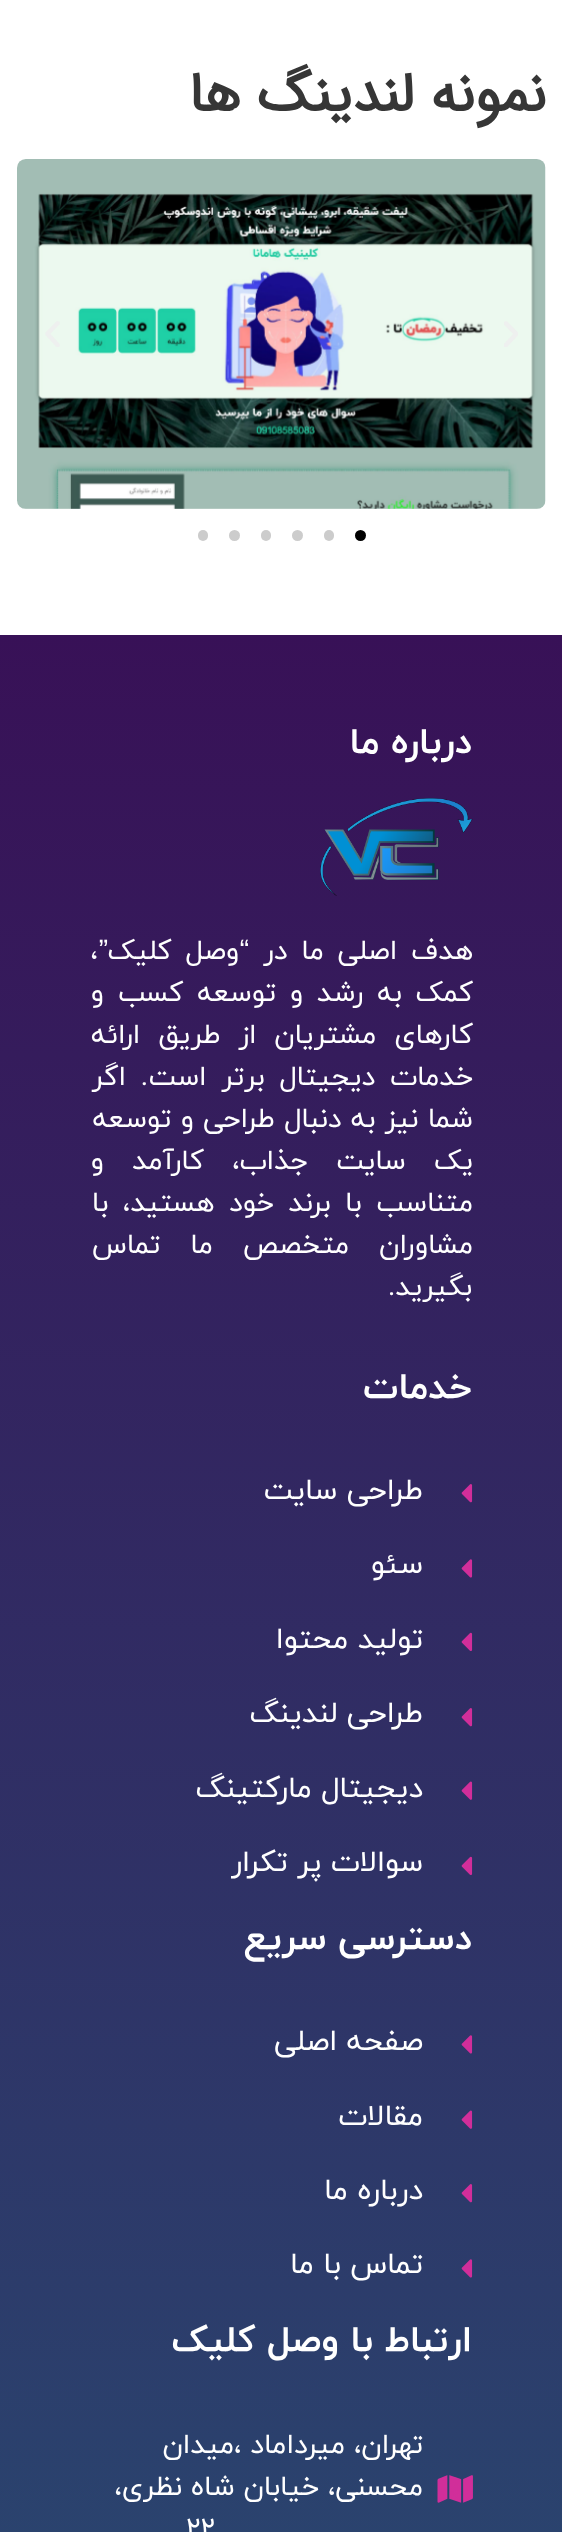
<!DOCTYPE html>
<meta charset="utf-8">
<style>body { margin: 0 } canvas { display: block }</style>
<canvas id="canvas" width="562" height="2532"></canvas>
<script type="module">
  const canvas = document.getElementById("canvas");
  const ctx = canvas.getContext("2d");
  ctx.miterLimit = 4;
  ctx.fontKerning = "normal";
  async function loadImage(src) {
    const img = new Image();
    img.src = src;
    await img.decode();
    return img;
  }
  let gradient;

  ctx.fillStyle = "#ffffff";
  ctx.fillRect(0, 0, 562, 2532);
  ctx.direction = "rtl";
  ctx.font = "bold 56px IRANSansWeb";
  ctx.fillStyle = "#363636";
  ctx.fillText("نمونه لندینگ ها", 546, 111);
  ctx.drawImage(await loadImage("img1.png"), 17, 159, 529, 350);
  ctx.drawImage(await loadImage("img2.png"), 504, 321, 14, 26);
  ctx.drawImage(await loadImage("img3.png"), 45, 321, 15, 26);
  ctx.fillStyle = "#000000";
  ctx.beginPath();
  ctx.arc(360.5, 535.5, 5.5, 0, Math.PI * 2);
  ctx.fill();
  ctx.fillStyle = "#cccccc";
  ctx.beginPath();
  ctx.roundRect(324, 530, 10, 11, 5);
  ctx.fill();
  ctx.beginPath();
  ctx.arc(297.5, 535.5, 5.5, 0, Math.PI * 2);
  ctx.fill();
  ctx.beginPath();
  ctx.roundRect(261, 530, 10, 11, 5);
  ctx.fill();
  ctx.beginPath();
  ctx.arc(234.5, 535.5, 5.5, 0, Math.PI * 2);
  ctx.fill();
  ctx.beginPath();
  ctx.roundRect(198, 530, 10, 11, 5);
  ctx.fill();
  gradient = ctx.createLinearGradient(282, 635, 282, 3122);
  gradient.addColorStop(0, "#381157");
  gradient.addColorStop(1, "#265275");
  ctx.fillStyle = gradient;
  ctx.fillRect(0, 635, 562, 1897);
  ctx.font = "bold 36.75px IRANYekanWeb";
  ctx.fillStyle = "#ffffff";
  ctx.fillText("درباره ما", 472, 753);
  ctx.drawImage(await loadImage("img4.png"), 320, 798, 153, 98);
  ctx.wordSpacing = "5px";
  ctx.font = "28px IRANYekanWeb";
  ctx.fillText("هدف اصلی ما در", 473, 959);
  ctx.wordSpacing = "0px";
  ctx.font = "28px Liberation Sans";
  ctx.fillText("“", 249, 959);
  ctx.wordSpacing = "5px";
  ctx.font = "28px IRANYekanWeb";
  ctx.fillText("وصل کلیک", 239, 959);
  ctx.wordSpacing = "0px";
  ctx.font = "28px Liberation Sans";
  ctx.fillText("”", 108, 959);
  ctx.font = "28px IRANYekanWeb";
  ctx.fillText("،", 98, 959);
  ctx.wordSpacing = "5px";
  ctx.fillText("کمک به رشد و توسعه کسب و", 473, 1001);
  ctx.wordSpacing = "9px";
  ctx.fillText("کارهای مشتریان از طریق ارائه", 473, 1043);
  ctx.wordSpacing = "6px";
  ctx.fillText("خدمات دیجیتال برتر است. اگر", 473, 1085);
  ctx.wordSpacing = "0.5px";
  ctx.fillText("شما نیز به دنبال طراحی و توسعه", 473, 1127);
  ctx.wordSpacing = "19.5px";
  ctx.fillText("یک سایت جذاب، کارآمد و", 473, 1169);
  ctx.wordSpacing = "5.75px";
  ctx.fillText("متناسب با برند خود هستید، با", 473, 1211);
  ctx.wordSpacing = "21px";
  ctx.fillText("مشاوران متخصص ما تماس", 473, 1253);
  ctx.wordSpacing = "0px";
  ctx.fillText("بگیرید.", 472, 1295);
  ctx.font = "bold 36.75px IRANYekanWeb";
  ctx.fillText("خدمات", 472, 1398);
  ctx.drawImage(await loadImage("img5.png"), 461, 1484, 12, 19);
  ctx.font = "29.75px IRANYekanWeb";
  ctx.fillText("طراحی سایت", 423, 1499);
  ctx.drawImage(await loadImage("img6.png"), 461, 1559, 12, 19);
  ctx.fillText("سئو", 423, 1573);
  ctx.drawImage(await loadImage("img7.png"), 461, 1632, 12, 19);
  ctx.fillText("تولید محتوا", 423, 1648);
  ctx.drawImage(await loadImage("img8.png"), 461, 1708, 12, 19);
  ctx.fillText("طراحی لندینگ", 423, 1722);
  ctx.drawImage(await loadImage("img9.png"), 461, 1781, 12, 19);
  ctx.fillText("دیجیتال مارکتینگ", 423, 1797);
  ctx.drawImage(await loadImage("img10.png"), 461, 1856, 12, 19);
  ctx.fillText("سوالات پر تکرار", 423, 1871);
  ctx.font = "bold 36.75px IRANYekanWeb";
  ctx.fillText("دسترسی سریع", 472, 1949);
  ctx.drawImage(await loadImage("img11.png"), 461, 2035, 12, 19);
  ctx.font = "29.75px IRANYekanWeb";
  ctx.fillText("صفحه اصلی", 423, 2050);
  ctx.drawImage(await loadImage("img12.png"), 461, 2110, 12, 19);
  ctx.fillText("مقالات", 423, 2125);
  ctx.drawImage(await loadImage("img13.png"), 461, 2184, 12, 19);
  ctx.fillText("درباره ما", 423, 2199);
  ctx.drawImage(await loadImage("img14.png"), 461, 2259, 12, 19);
  ctx.fillText("تماس با ما", 423, 2273);
  ctx.font = "bold 36.75px IRANYekanWeb";
  ctx.fillText("ارتباط با وصل کلیک", 472, 2351);
  ctx.drawImage(await loadImage("img15.png"), 437, 2475, 36, 28);
  ctx.font = "28px IRANYekanWeb";
  ctx.fillText("تهران، میرداماد ،‌میدان", 423, 2453);
  ctx.fillText("محسنی، خیابان شاه نظری،", 423, 2495);
  ctx.direction = "ltr";
  ctx.fillText("۲۲", 186, 2537);
</script>
